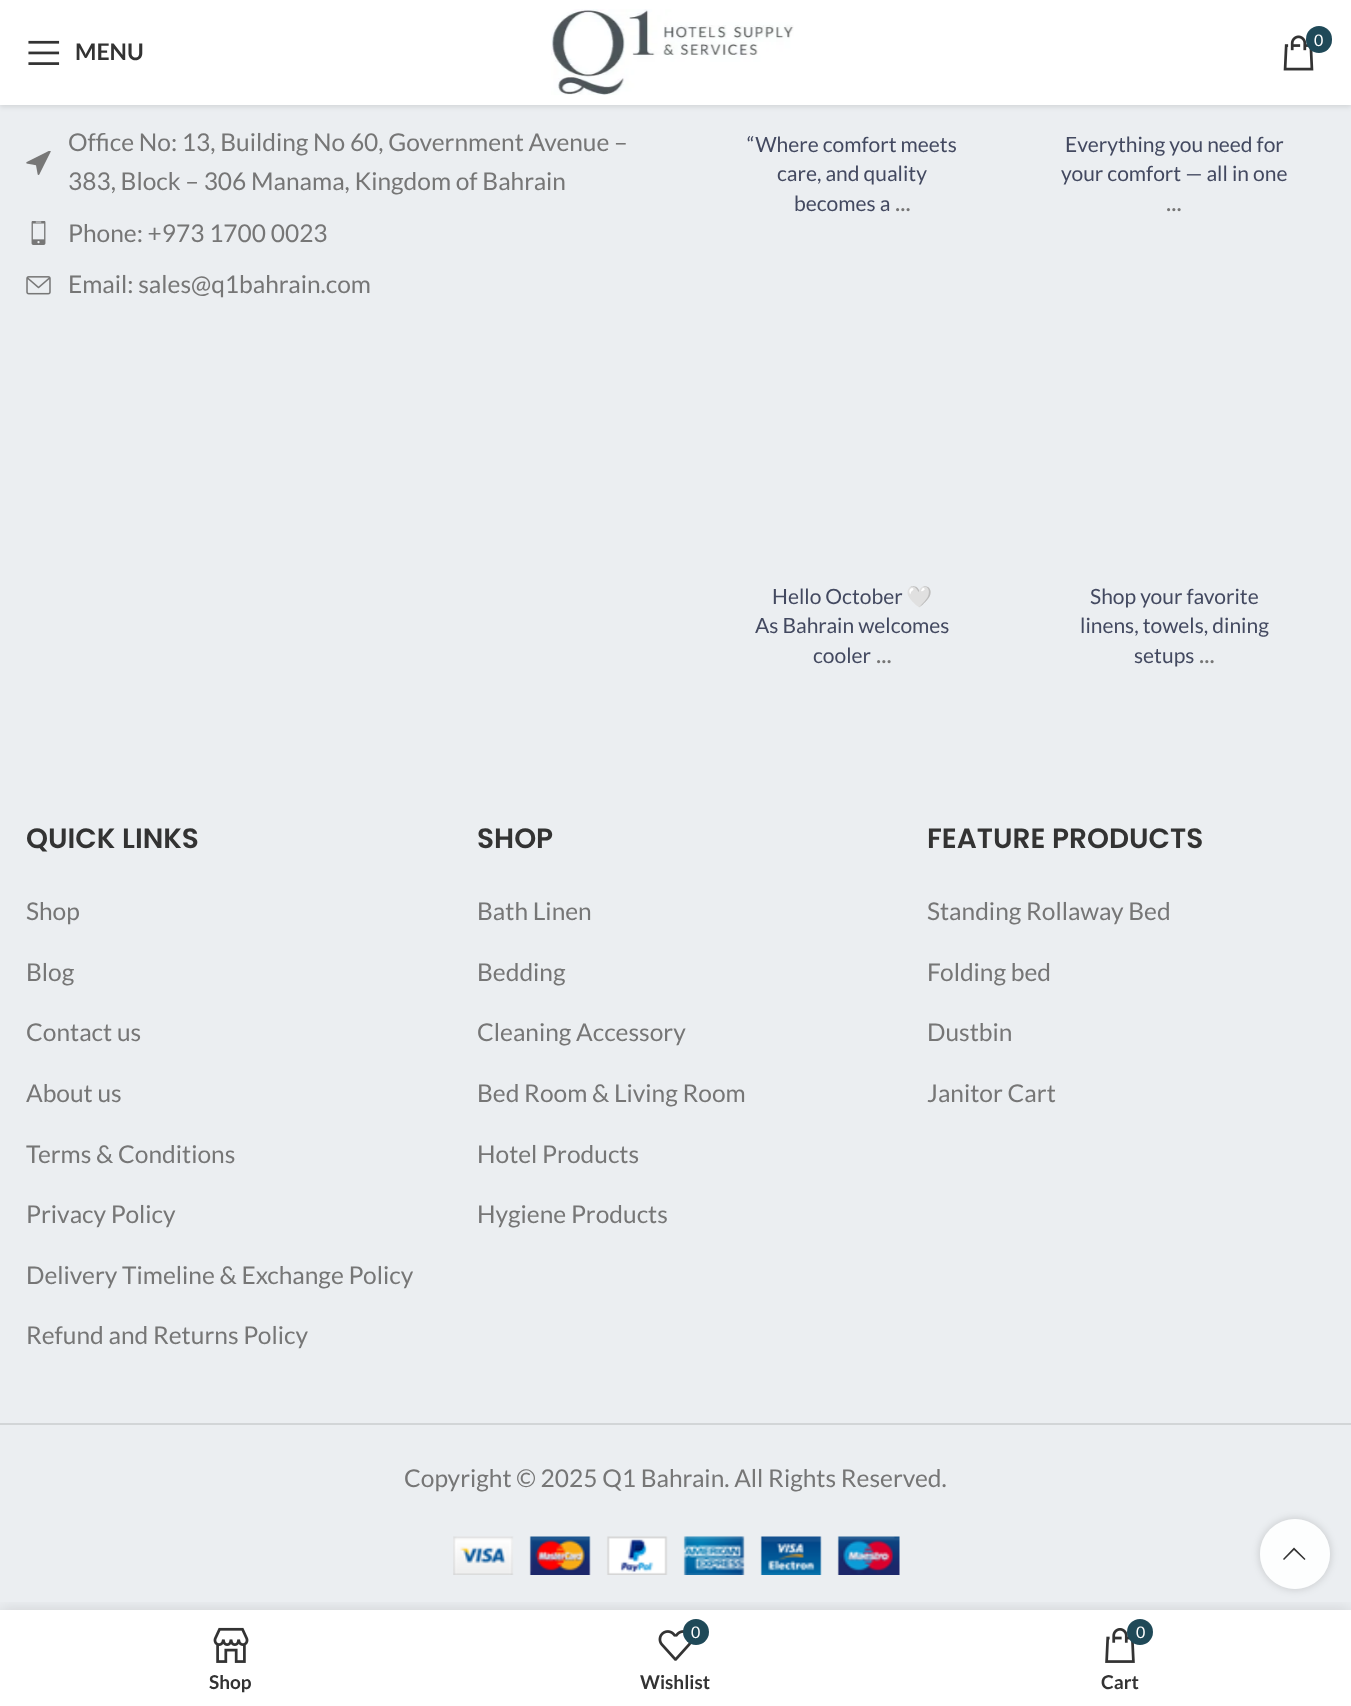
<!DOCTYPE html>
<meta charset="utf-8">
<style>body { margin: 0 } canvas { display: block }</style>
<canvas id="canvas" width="1351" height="1706"></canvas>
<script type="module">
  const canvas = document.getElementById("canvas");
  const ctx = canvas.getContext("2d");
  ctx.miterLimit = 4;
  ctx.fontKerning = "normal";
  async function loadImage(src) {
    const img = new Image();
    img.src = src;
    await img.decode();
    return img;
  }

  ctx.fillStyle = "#ffffff";
  ctx.fillRect(0, 0, 1351, 1706);
  ctx.fillStyle = "#ebeef1";
  ctx.fillRect(0, 105, 1351, 1505);
  ctx.fillStyle = "rgba(0, 0, 0, 0.1)";
  ctx.filter = "blur(2.5px)";
  ctx.beginPath();
  ctx.rect(0, 2, 1351, 105);
  ctx.fill();
  ctx.filter = "none";
  ctx.fillStyle = "#ffffff";
  ctx.fillRect(0, 0, 1351, 105);
  ctx.drawImage(await loadImage("img1.png"), 551, 9, 243, 86);
  ctx.drawImage(await loadImage("img2.png"), 1283, 35, 31, 36);
  ctx.fillStyle = "#1f4958";
  ctx.beginPath();
  ctx.roundRect(1306, 26, 26, 27, 13);
  ctx.fill();
  ctx.font = "16px Lato";
  ctx.fillStyle = "#ffffff";
  ctx.fillText("0", 1314, 46);
  ctx.drawImage(await loadImage("img3.png"), 28, 40, 32, 25);
  ctx.font = "bold 23px Lato";
  ctx.fillStyle = "#333333";
  ctx.fillText("MENU", 75, 60);
  ctx.drawImage(await loadImage("img4.png"), 26, 151, 25, 24);
  ctx.font = "24.5px Lato";
  ctx.fillStyle = "#767676";
  ctx.fillText("Office No: 13, Building No 60, Government Avenue –", 68, 151);
  ctx.fillText("383, Block – 306 Manama, Kingdom of Bahrain", 68, 190);
  ctx.drawImage(await loadImage("img5.png"), 31, 221, 15, 24);
  ctx.fillText("Phone: +973 1700 0023", 68, 242);
  ctx.drawImage(await loadImage("img6.png"), 26, 276, 25, 19);
  ctx.fillText("Email: sales@q1bahrain.com", 68, 293);
  ctx.font = "21px Lato";
  ctx.fillStyle = "#434960";
  ctx.fillText("“Where comfort meets", 747, 152);
  ctx.fillText("care, and quality", 777, 181);
  ctx.fillText("becomes a", 794, 211);
  ctx.font = "24.5px Lato";
  ctx.fillStyle = "#767676";
  ctx.fillText("...", 895, 211);
  ctx.font = "21px Lato";
  ctx.fillStyle = "#434960";
  ctx.fillText("Everything you need for", 1065, 152);
  ctx.fillText("your comfort — all in one", 1061, 181);
  ctx.font = "24.5px Lato";
  ctx.fillStyle = "#767676";
  ctx.fillText("...", 1166, 211);
  ctx.font = "21px Lato";
  ctx.fillStyle = "#434960";
  ctx.fillText("Hello October", 772, 604);
  ctx.font = "21px Noto Color Emoji";
  ctx.fillText("🤍", 906, 604);
  ctx.font = "21px Lato";
  ctx.fillText("As Bahrain welcomes", 755, 633);
  ctx.fillText("cooler", 813, 663);
  ctx.font = "24.5px Lato";
  ctx.fillStyle = "#767676";
  ctx.fillText("...", 876, 663);
  ctx.font = "21px Lato";
  ctx.fillStyle = "#434960";
  ctx.fillText("Shop your favorite", 1090, 604);
  ctx.fillText("linens, towels, dining", 1080, 633);
  ctx.fillText("setups", 1134, 663);
  ctx.font = "24.5px Lato";
  ctx.fillStyle = "#767676";
  ctx.fillText("...", 1199, 663);
  ctx.font = "600 28px Poppins";
  ctx.fillStyle = "#333333";
  ctx.fillText("QUICK LINKS", 26, 848);
  ctx.font = "24.5px Lato";
  ctx.fillStyle = "#767676";
  ctx.fillText("Shop", 26, 920);
  ctx.fillText("Blog", 26, 981);
  ctx.fillText("Contact us", 26, 1041);
  ctx.fillText("About us", 26, 1102);
  ctx.fillText("Terms & Conditions", 26, 1163);
  ctx.fillText("Privacy Policy", 26, 1223);
  ctx.fillText("Delivery Timeline & Exchange Policy", 26, 1284);
  ctx.fillText("Refund and Returns Policy", 26, 1344);
  ctx.font = "600 28px Poppins";
  ctx.fillStyle = "#333333";
  ctx.fillText("SHOP", 477, 848);
  ctx.font = "24.5px Lato";
  ctx.fillStyle = "#767676";
  ctx.fillText("Bath Linen", 477, 920);
  ctx.fillText("Bedding", 477, 981);
  ctx.fillText("Cleaning Accessory", 477, 1041);
  ctx.fillText("Bed Room & Living Room", 477, 1102);
  ctx.fillText("Hotel Products", 477, 1163);
  ctx.fillText("Hygiene Products", 477, 1223);
  ctx.font = "600 28px Poppins";
  ctx.fillStyle = "#333333";
  ctx.fillText("FEATURE PRODUCTS", 927, 848);
  ctx.font = "24.5px Lato";
  ctx.fillStyle = "#767676";
  ctx.fillText("Standing Rollaway Bed", 927, 920);
  ctx.fillText("Folding bed", 927, 981);
  ctx.fillText("Dustbin", 927, 1041);
  ctx.fillText("Janitor Cart", 927, 1102);
  ctx.fillStyle = "#d2d5d7";
  ctx.fillRect(0, 1423, 1351, 2);
  ctx.fillStyle = "#767676";
  ctx.fillText("Copyright © 2025 Q1 Bahrain. All Rights Reserved.", 404, 1487);
  ctx.drawImage(await loadImage("img7.png"), 453, 1536, 447, 39);
  ctx.save();
  ctx.beginPath();
  ctx.moveTo(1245, 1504);
  ctx.lineTo(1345, 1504);
  ctx.lineTo(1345, 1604);
  ctx.lineTo(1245, 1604);
  ctx.closePath();
  ctx.moveTo(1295, 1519);
  ctx.bezierCurveTo(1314.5, 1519, 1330, 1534.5, 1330, 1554);
  ctx.bezierCurveTo(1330, 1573.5, 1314.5, 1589, 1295, 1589);
  ctx.bezierCurveTo(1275.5, 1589, 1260, 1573.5, 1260, 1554);
  ctx.bezierCurveTo(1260, 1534.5, 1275.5, 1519, 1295, 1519);
  ctx.closePath();
  ctx.clip("evenodd");
  ctx.fillStyle = "rgba(0, 0, 0, 0.17)";
  ctx.filter = "blur(4.5px)";
  ctx.beginPath();
  ctx.roundRect(1260, 1519, 70, 70, 35);
  ctx.fill();
  ctx.filter = "none";
  ctx.restore();
  ctx.fillStyle = "rgba(255, 255, 255, 0.9)";
  ctx.beginPath();
  ctx.arc(1295, 1554, 35, 0, Math.PI * 2);
  ctx.fill();
  ctx.fillStyle = "#333333";
  ctx.beginPath();
  ctx.moveTo(1304.5, 1560);
  ctx.lineTo(1305.5, 1559);
  ctx.lineTo(1294, 1547.5);
  ctx.lineTo(1283, 1559);
  ctx.lineTo(1284, 1560);
  ctx.lineTo(1294, 1550);
  ctx.closePath();
  ctx.fill();
  ctx.save();
  ctx.beginPath();
  ctx.rect(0, 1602, 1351, 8);
  ctx.clip();
  ctx.fillStyle = "rgba(0, 0, 0, 0.12)";
  ctx.filter = "blur(8px)";
  ctx.beginPath();
  ctx.rect(0, 1610, 1351, 96);
  ctx.fill();
  ctx.filter = "none";
  ctx.restore();
  ctx.drawImage(await loadImage("img8.png"), 213, 1627, 36, 36);
  ctx.font = "bold 19px Lato";
  ctx.fillText("Shop", 209, 1689);
  ctx.drawImage(await loadImage("img9.png"), 658, 1630, 34, 31);
  ctx.fillStyle = "#1f4958";
  ctx.beginPath();
  ctx.arc(696, 1632, 13, 0, Math.PI * 2);
  ctx.fill();
  ctx.font = "16px Lato";
  ctx.fillStyle = "#ffffff";
  ctx.fillText("0", 691, 1638);
  ctx.font = "bold 19px Lato";
  ctx.fillStyle = "#333333";
  ctx.fillText("Wishlist", 640, 1689);
  ctx.drawImage(await loadImage("img10.png"), 1105, 1628, 30, 35);
  ctx.fillStyle = "#1f4958";
  ctx.beginPath();
  ctx.arc(1140, 1632, 13, 0, Math.PI * 2);
  ctx.fill();
  ctx.font = "16px Lato";
  ctx.fillStyle = "#ffffff";
  ctx.fillText("0", 1136, 1638);
  ctx.font = "bold 19px Lato";
  ctx.fillStyle = "#333333";
  ctx.fillText("Cart", 1101, 1689);
</script>
